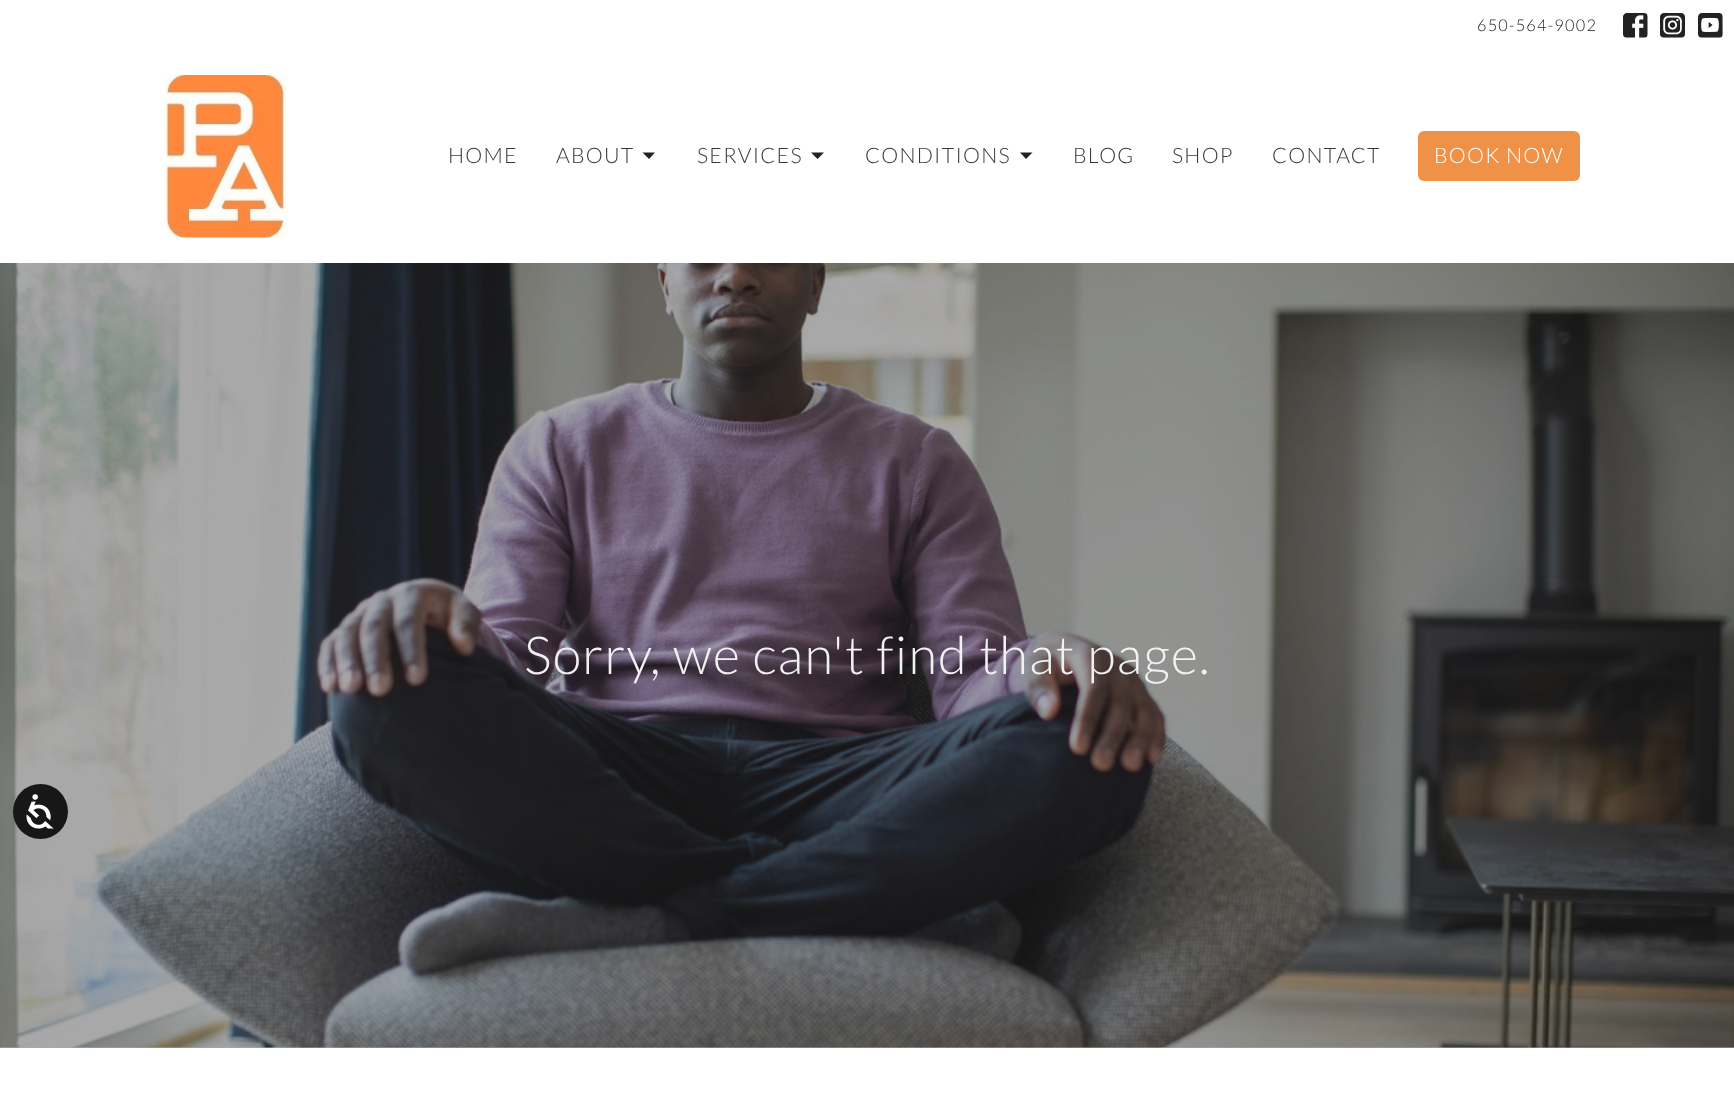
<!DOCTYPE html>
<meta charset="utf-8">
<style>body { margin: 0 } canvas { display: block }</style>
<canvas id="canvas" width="1734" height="1104"></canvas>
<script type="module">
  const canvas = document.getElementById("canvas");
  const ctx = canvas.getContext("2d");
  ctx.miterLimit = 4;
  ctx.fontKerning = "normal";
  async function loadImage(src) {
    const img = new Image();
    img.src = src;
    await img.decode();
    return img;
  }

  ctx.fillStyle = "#ffffff";
  ctx.fillRect(0, 0, 1734, 1104);
  ctx.fillStyle = "#a9a9a9";
  ctx.fillRect(0, 1047, 1734, 1);
  ctx.letterSpacing = "1.25px";
  ctx.font = "300 16.25px Lato";
  ctx.fillStyle = "#222222";
  ctx.fillText("650-564-9002", 1477, 31);
  ctx.drawImage(await loadImage("img1.png"), 1623, 13, 25, 25);
  ctx.drawImage(await loadImage("img2.png"), 1660, 13, 25, 25);
  ctx.drawImage(await loadImage("img3.png"), 1698, 13, 25, 25);
  ctx.drawImage(await loadImage("img4.png"), 162, 75, 126, 163);
  ctx.font = "300 21.25px Lato";
  ctx.fillStyle = "#383838";
  ctx.fillText("HOME", 448, 163);
  ctx.fillText("ABOUT", 556, 163);
  ctx.fillStyle = "#222222";
  ctx.beginPath();
  ctx.moveTo(642.5, 152.5);
  ctx.lineTo(649, 159);
  ctx.lineTo(655, 152.5);
  ctx.closePath();
  ctx.fill();
  ctx.fillStyle = "#383838";
  ctx.fillText("SERVICES", 697, 163);
  ctx.fillStyle = "#222222";
  ctx.beginPath();
  ctx.moveTo(811, 152.5);
  ctx.lineTo(817.5, 159);
  ctx.lineTo(824, 152.5);
  ctx.closePath();
  ctx.fill();
  ctx.fillStyle = "#383838";
  ctx.fillText("CONDITIONS", 865, 163);
  ctx.fillStyle = "#222222";
  ctx.beginPath();
  ctx.moveTo(1020, 152.5);
  ctx.lineTo(1026, 159);
  ctx.lineTo(1032.5, 152.5);
  ctx.closePath();
  ctx.fill();
  ctx.fillStyle = "#383838";
  ctx.fillText("BLOG", 1073, 163);
  ctx.fillText("SHOP", 1172, 163);
  ctx.fillText("CONTACT", 1272, 163);
  ctx.fillStyle = "#f09148";
  ctx.beginPath();
  ctx.roundRect(1418, 131, 162, 50, 6);
  ctx.fill();
  ctx.fillStyle = "#ffffff";
  ctx.fillText("BOOK NOW", 1434, 163);
  ctx.drawImage(await loadImage("img5.png"), 0, 263, 1734, 785);
  ctx.font = "300 52.5px Lato";
  ctx.fillStyle = "#f1f1f1";
  ctx.fillText("Sorry, we can't find that page.", 524, 674);
  ctx.fillStyle = "#171717";
  ctx.beginPath();
  ctx.arc(40.5, 811.5, 27.5, 0, Math.PI * 2);
  ctx.fill();
  ctx.drawImage(await loadImage("img6.png"), 26, 794, 28, 35);
</script>
